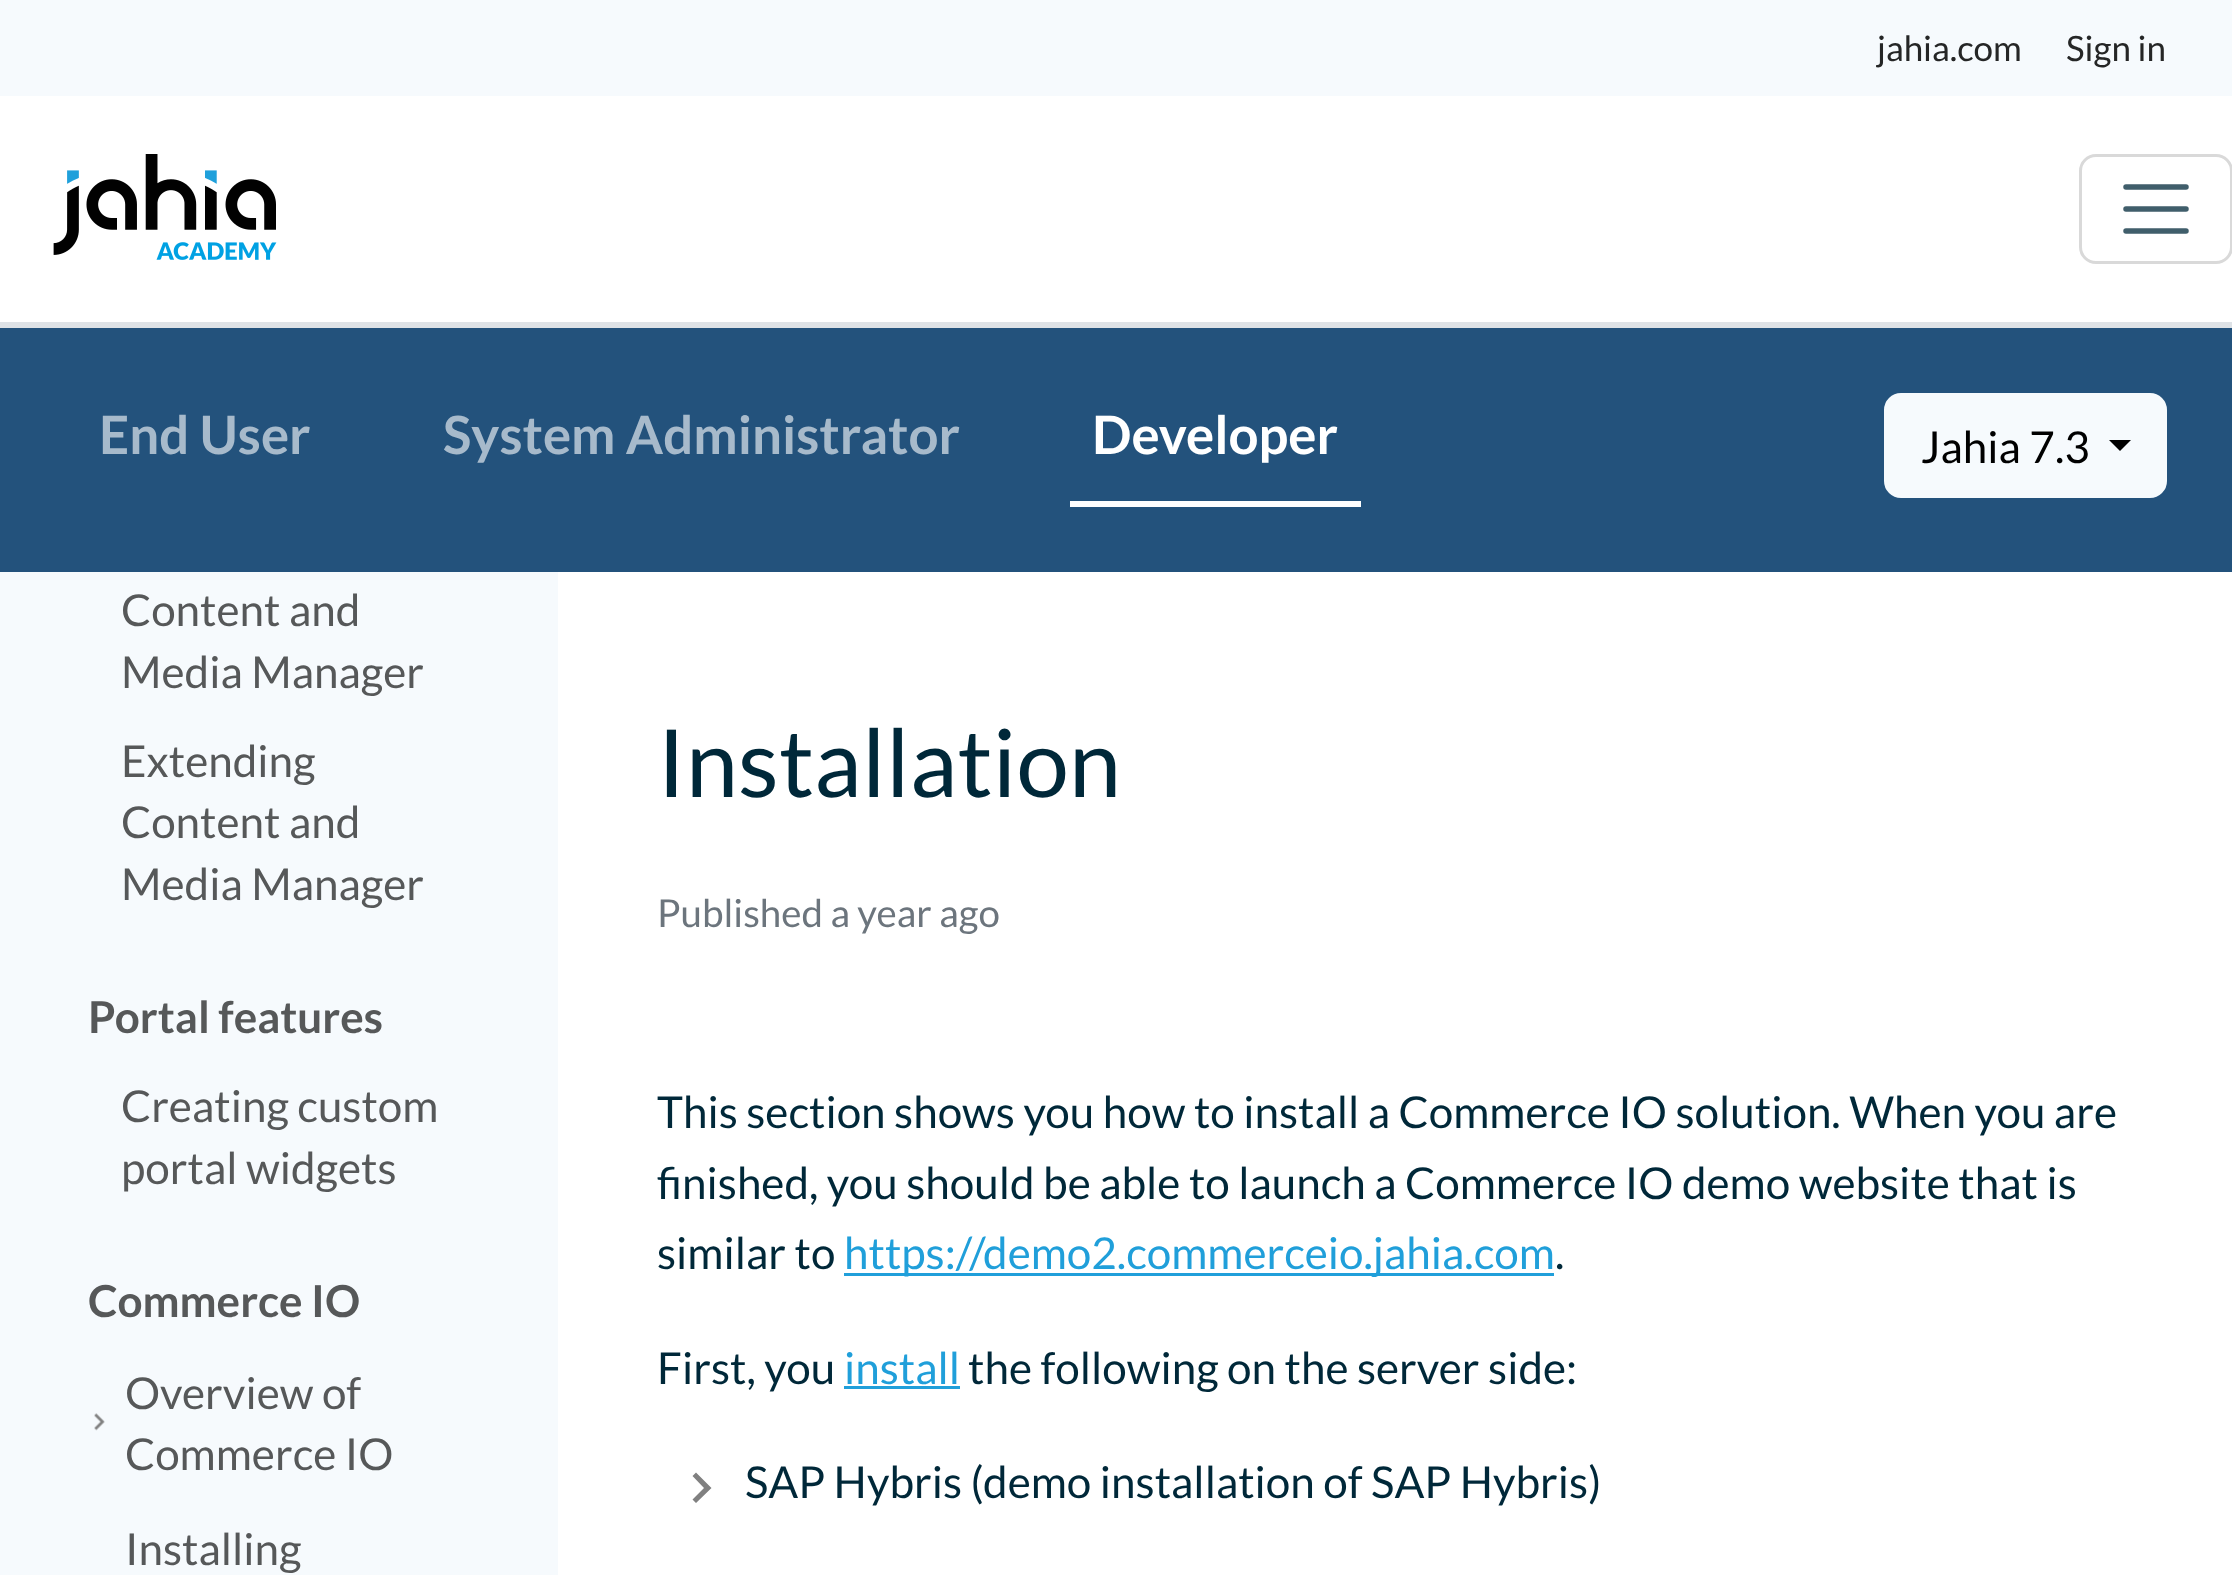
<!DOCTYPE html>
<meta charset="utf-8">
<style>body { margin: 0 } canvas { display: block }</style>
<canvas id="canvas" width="2232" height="1575"></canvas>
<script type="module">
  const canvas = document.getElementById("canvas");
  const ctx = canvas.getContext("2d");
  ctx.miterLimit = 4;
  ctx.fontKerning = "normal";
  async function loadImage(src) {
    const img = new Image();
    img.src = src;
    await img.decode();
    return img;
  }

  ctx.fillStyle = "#ffffff";
  ctx.fillRect(0, 0, 2232, 1575);
  ctx.fillStyle = "#f6fafd";
  ctx.fillRect(0, 0, 2232, 96);
  ctx.font = "35px Lato";
  ctx.fillStyle = "#252626";
  ctx.fillText("jahia.com", 1877, 61);
  ctx.fillText("Sign in", 2066, 61);
  ctx.fillStyle = "#dee2e6";
  ctx.fillRect(0, 322, 2232, 6);
  ctx.drawImage(await loadImage("img1.png"), 53, 154, 224, 106);
  ctx.beginPath();
  ctx.roundRect(2080.5, 155.5, 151, 107, 15.5);
  ctx.strokeStyle = "#d9d9d9";
  ctx.lineWidth = 3;
  ctx.stroke();
  ctx.beginPath();
  ctx.moveTo(2126, 187);
  ctx.lineTo(2186, 187);
  ctx.moveTo(2126, 209);
  ctx.lineTo(2186, 209);
  ctx.moveTo(2126, 231);
  ctx.lineTo(2186, 231);
  ctx.strokeStyle = "#405e6b";
  ctx.lineWidth = 5.5;
  ctx.lineCap = "round";
  ctx.stroke();
  ctx.fillStyle = "#23527c";
  ctx.fillRect(0, 328, 2232, 244);
  ctx.font = "bold 52.75px Lato";
  ctx.fillStyle = "#a7bacb";
  ctx.fillText("End User", 99, 454);
  ctx.fillText("System Administrator", 443, 454);
  ctx.fillStyle = "#ffffff";
  ctx.fillRect(1070, 501, 291, 6);
  ctx.fillText("Developer", 1092, 454);
  ctx.fillStyle = "#f6fafd";
  ctx.beginPath();
  ctx.roundRect(1885.5, 394.5, 280, 102, 15.5);
  ctx.fill();
  ctx.strokeStyle = "#f6fafd";
  ctx.lineWidth = 3;
  ctx.stroke();
  ctx.font = "44px Lato";
  ctx.fillStyle = "#000000";
  ctx.fillText("Jahia 7.3", 1921, 463);
  ctx.beginPath();
  ctx.moveTo(2109, 440);
  ctx.lineTo(2131, 440);
  ctx.lineTo(2120, 451);
  ctx.closePath();
  ctx.fill();
  ctx.fillStyle = "#f6fafd";
  ctx.fillRect(0, 572, 558, 1003);
  ctx.fillStyle = "#565859";
  ctx.fillText("Content and", 121, 626);
  ctx.fillText("Media Manager", 121, 688);
  ctx.fillText("Extending", 121, 777);
  ctx.fillText("Content and", 121, 838);
  ctx.fillText("Media Manager", 121, 900);
  ctx.font = "bold 44px Lato";
  ctx.fillText("Portal features", 88, 1033);
  ctx.font = "44px Lato";
  ctx.fillText("Creating custom", 121, 1122);
  ctx.fillText("portal widgets", 121, 1184);
  ctx.font = "bold 44px Lato";
  ctx.fillText("Commerce IO", 88, 1317);
  ctx.font = "44px Lato";
  ctx.fillText("Overview of", 125, 1409);
  ctx.drawImage(await loadImage("img2.png"), 94, 1413, 11, 18);
  ctx.fillText("Commerce IO", 125, 1470);
  ctx.fillText("Installing", 125, 1565);
  ctx.font = "94px Lato";
  ctx.fillStyle = "#002839";
  ctx.fillText("Installation", 657, 797);
  ctx.font = "38.5px Lato";
  ctx.fillStyle = "#6c757d";
  ctx.fillText("Published a year ago", 657, 927);
  ctx.font = "44px Lato";
  ctx.fillStyle = "#002839";
  ctx.fillText("This section shows you how to install a Commerce IO solution. When you are", 657, 1128);
  ctx.fillText("finished, you should be able to launch a Commerce IO demo website that is", 657, 1199);
  ctx.fillText("similar to", 657, 1269);
  ctx.fillStyle = "#209fda";
  ctx.fillRect(844, 1273, 710, 3);
  ctx.fillText("https://demo2.commerceio.jahia.com", 844, 1269);
  ctx.fillStyle = "#002839";
  ctx.fillText(".", 1555, 1269);
  ctx.fillText("First, you", 657, 1384);
  ctx.fillStyle = "#209fda";
  ctx.fillText("install", 844, 1384);
  ctx.fillRect(844, 1386, 116, 3);
  ctx.fillStyle = "#002839";
  ctx.fillText("the following on the server side:", 968, 1384);
  ctx.fillStyle = "#808080";
  ctx.beginPath();
  ctx.moveTo(692.5, 1499.5);
  ctx.lineTo(704, 1488);
  ctx.lineTo(692.5, 1476);
  ctx.lineTo(696, 1472.5);
  ctx.lineTo(711.5, 1488);
  ctx.lineTo(696, 1503);
  ctx.closePath();
  ctx.fill();
  ctx.fillStyle = "#002839";
  ctx.fillText("SAP Hybris (demo installation of SAP Hybris)", 745, 1498);
</script>
